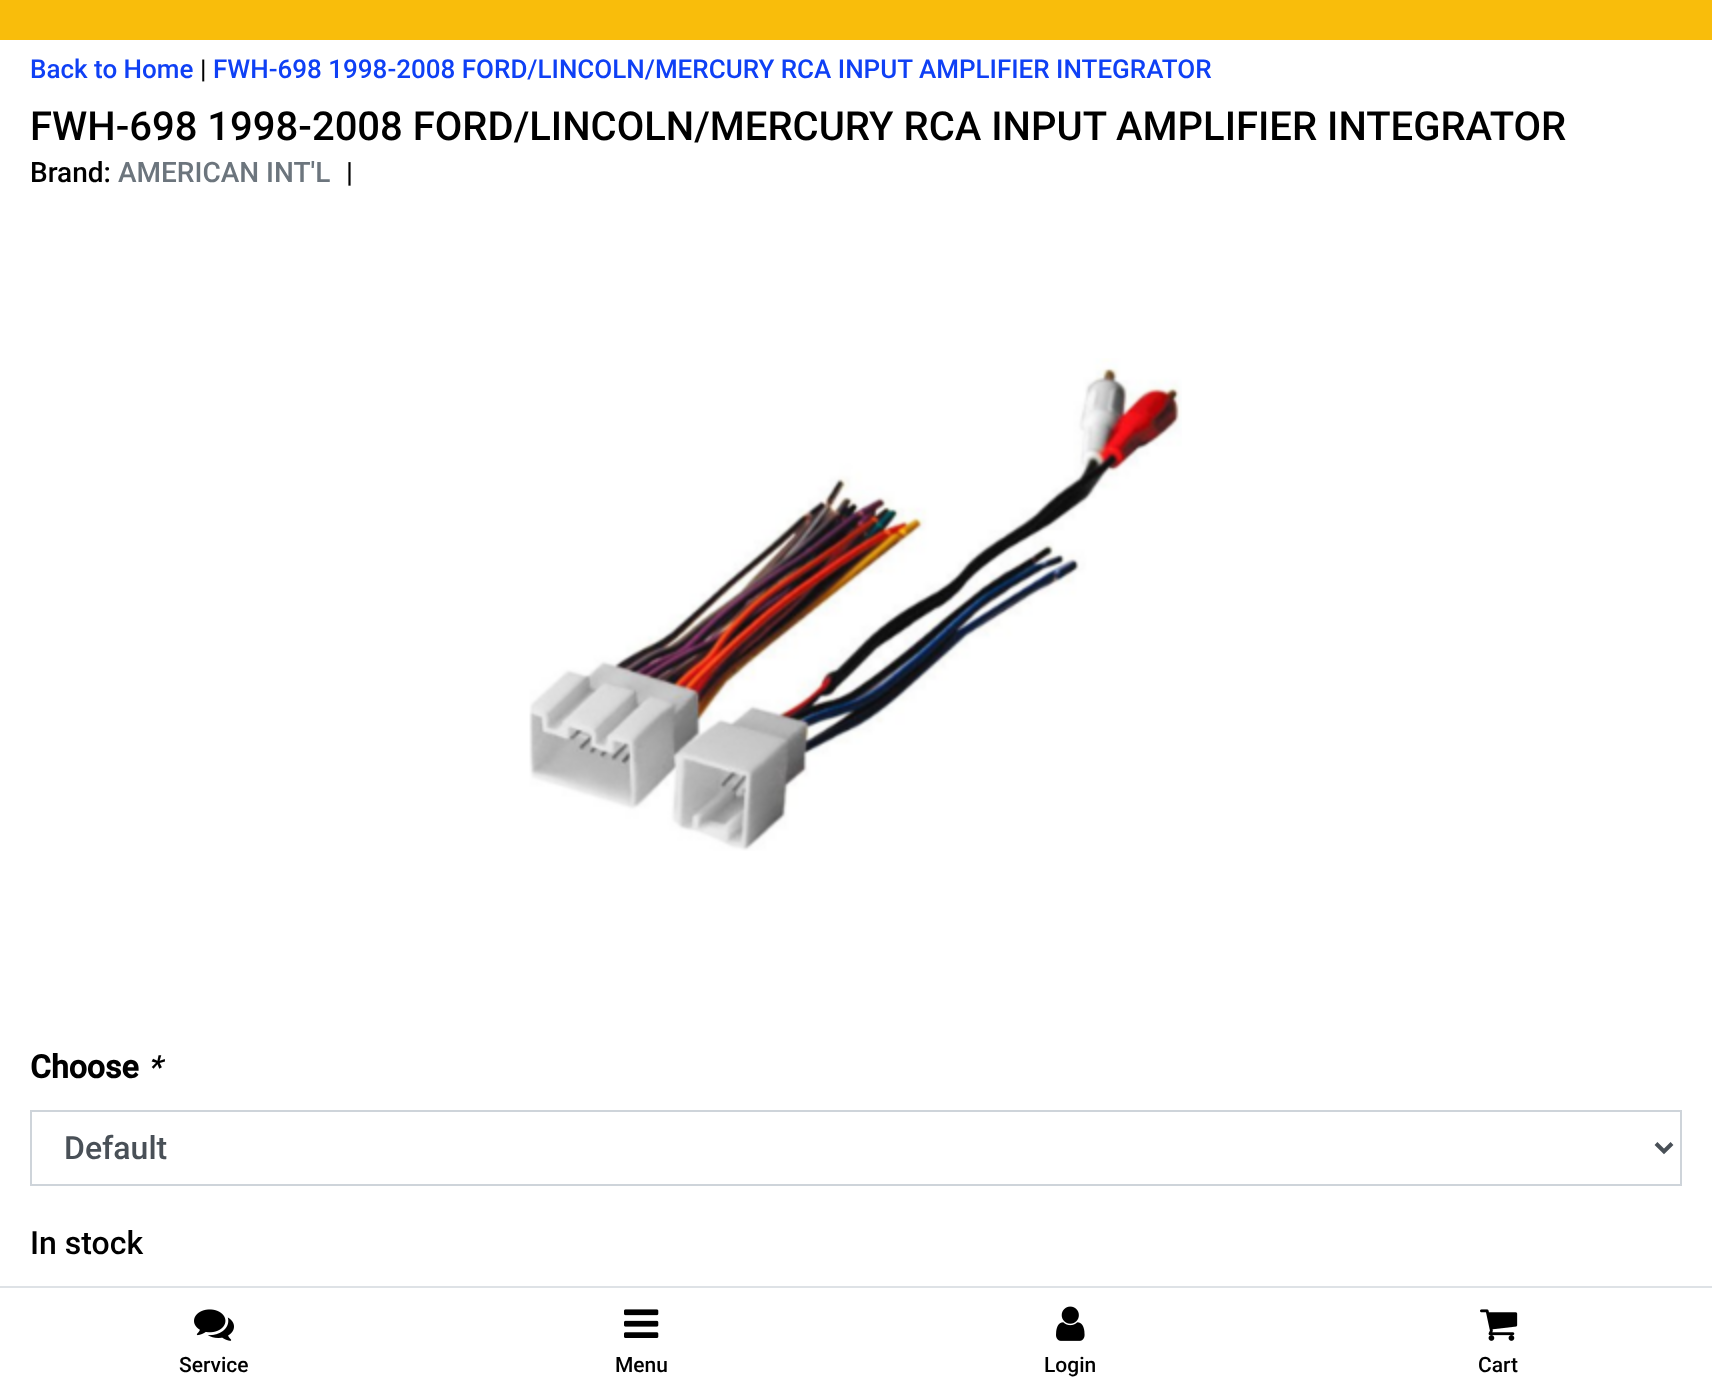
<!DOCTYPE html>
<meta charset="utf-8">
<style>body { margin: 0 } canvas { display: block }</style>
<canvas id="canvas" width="1712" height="1398"></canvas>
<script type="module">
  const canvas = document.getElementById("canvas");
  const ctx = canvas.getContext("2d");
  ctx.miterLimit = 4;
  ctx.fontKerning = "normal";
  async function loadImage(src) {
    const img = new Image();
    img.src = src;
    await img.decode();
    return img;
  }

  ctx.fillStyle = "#ffffff";
  ctx.fillRect(0, 0, 1712, 1398);
  ctx.fillStyle = "#f9bd0b";
  ctx.fillRect(0, 0, 1712, 40);
  ctx.font = "500 26px Roboto";
  ctx.fillStyle = "#0f40f5";
  ctx.fillText("Back to Home", 30, 78);
  ctx.fillStyle = "#000000";
  ctx.fillText("|", 200, 78);
  ctx.fillStyle = "#0f40f5";
  ctx.fillText("FWH-698 1998-2008 FORD/LINCOLN/MERCURY RCA INPUT AMPLIFIER INTEGRATOR", 213, 78);
  ctx.font = "500 40px Roboto";
  ctx.fillStyle = "#000000";
  ctx.fillText("FWH-698 1998-2008 FORD/LINCOLN/MERCURY RCA INPUT AMPLIFIER INTEGRATOR", 30, 140);
  ctx.font = "500 28px Roboto";
  ctx.fillText("Brand:", 30, 182);
  ctx.fillStyle = "#6c757d";
  ctx.fillText("AMERICAN INT'L", 118, 182);
  ctx.fillStyle = "#000000";
  ctx.fillText("|", 346, 182);
  ctx.drawImage(await loadImage("img1.png"), 529, 358, 653, 493);
  ctx.font = "bold 32px Roboto";
  ctx.fillText("Choose", 30, 1078);
  ctx.font = "italic 500 32px Roboto";
  ctx.fillText("*", 147, 1078);
  ctx.strokeStyle = "#ced4da";
  ctx.lineWidth = 2;
  ctx.strokeRect(31, 1111, 1650, 74);
  ctx.beginPath();
  ctx.moveTo(1656, 1143.5);
  ctx.lineTo(1664, 1151.5);
  ctx.lineTo(1672, 1143.5);
  ctx.strokeStyle = "#495057";
  ctx.lineWidth = 4;
  ctx.stroke();
  ctx.font = "500 32px Roboto";
  ctx.fillStyle = "#495057";
  ctx.fillText("Default", 64, 1159);
  ctx.fillStyle = "#000000";
  ctx.fillText("In stock", 30, 1254);
  ctx.fillStyle = "#dee2e6";
  ctx.fillRect(0, 1286, 1712, 2);
  ctx.drawImage(await loadImage("img2.png"), 194, 1309, 40, 32);
  ctx.font = "500 21px Roboto";
  ctx.fillStyle = "#000000";
  ctx.fillText("Service", 179, 1372);
  ctx.drawImage(await loadImage("img3.png"), 624, 1309, 35, 29);
  ctx.fillText("Menu", 615, 1372);
  ctx.drawImage(await loadImage("img4.png"), 1056, 1306, 29, 35);
  ctx.fillText("Login", 1044, 1372);
  ctx.drawImage(await loadImage("img5.png"), 1480, 1309, 38, 32);
  ctx.fillText("Cart", 1478, 1372);
</script>
